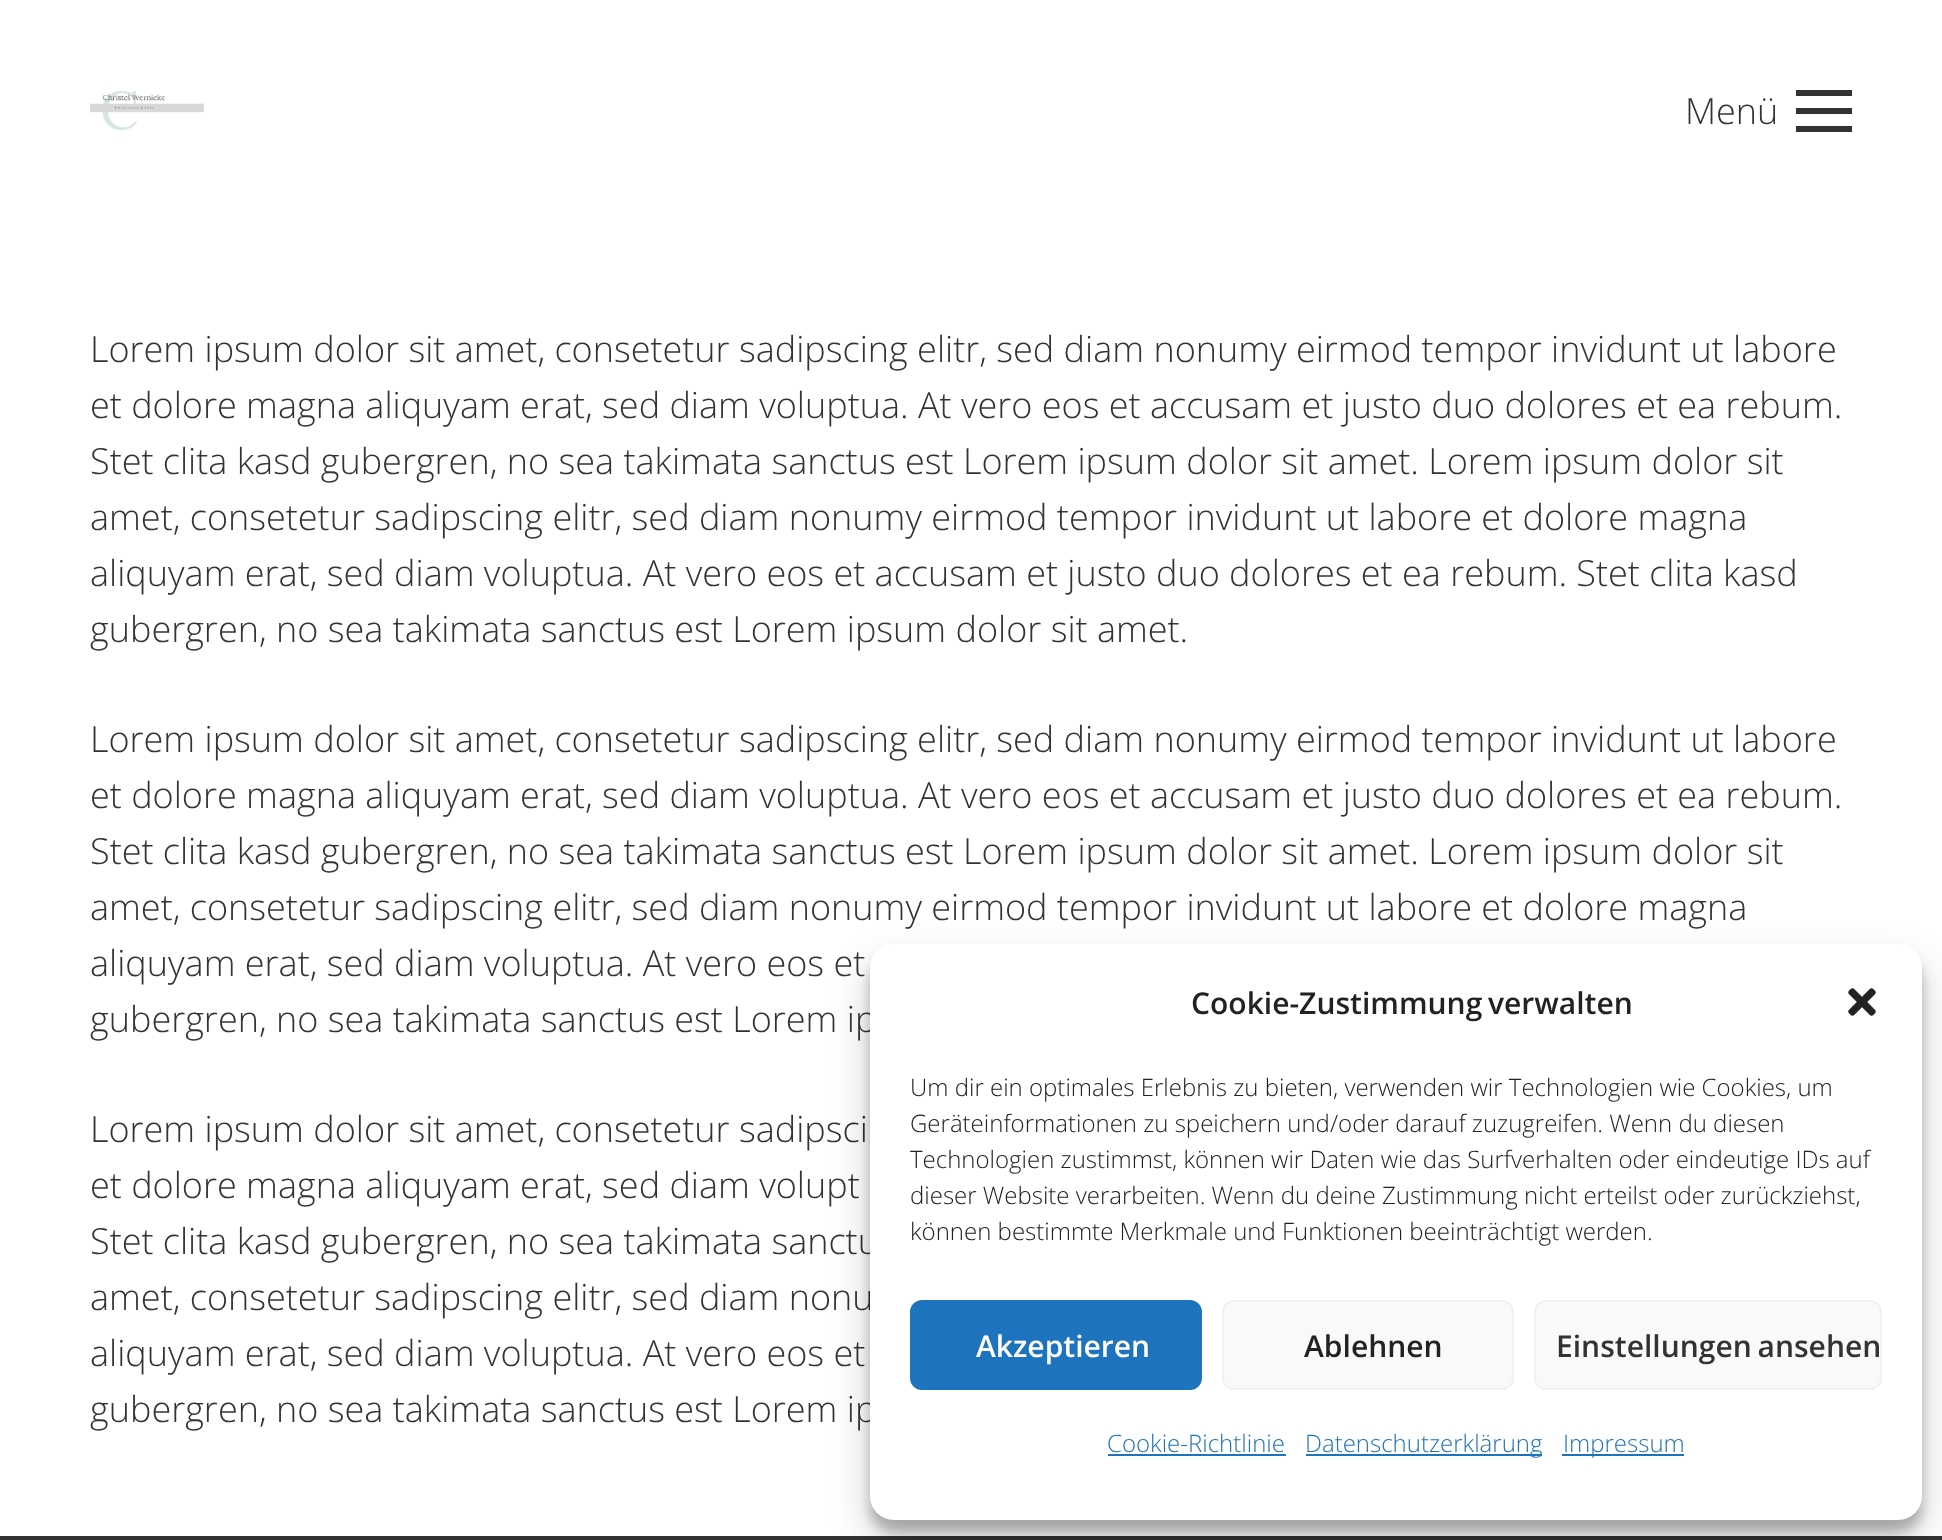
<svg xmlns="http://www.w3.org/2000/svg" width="1942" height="1540">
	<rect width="100%" height="100%" fill="#FFFFFF" />
	<image x="90" y="91" width="114" height="40" href="assets/img1.png" />
	<text x="1685" y="124" font-family="Open Sans" font-size="36" font-weight="300" fill="#333333">Menü</text>
	<rect x="1796" y="108" width="56" height="6" fill="#333333" />
	<rect x="1796" y="90" width="56" height="6" fill="#333333" />
	<rect x="1796" y="126" width="56" height="6" fill="#333333" />
	<g font-family="Open Sans" font-size="36" font-weight="300" fill="#333333">
		<text x="90" y="362">Lorem ipsum dolor sit amet, consetetur sadipscing elitr, sed diam nonumy eirmod tempor invidunt ut labore</text>
		<text x="90" y="418">et dolore magna aliquyam erat, sed diam voluptua. At vero eos et accusam et justo duo dolores et ea rebum.</text>
		<text x="90" y="474">Stet clita kasd gubergren, no sea takimata sanctus est Lorem ipsum dolor sit amet. Lorem ipsum dolor sit</text>
		<text x="90" y="530">amet, consetetur sadipscing elitr, sed diam nonumy eirmod tempor invidunt ut labore et dolore magna</text>
		<text x="90" y="586">aliquyam erat, sed diam voluptua. At vero eos et accusam et justo duo dolores et ea rebum. Stet clita kasd</text>
		<text x="90" y="642">gubergren, no sea takimata sanctus est Lorem ipsum dolor sit amet.</text>
		<text x="90" y="752">Lorem ipsum dolor sit amet, consetetur sadipscing elitr, sed diam nonumy eirmod tempor invidunt ut labore</text>
		<text x="90" y="808">et dolore magna aliquyam erat, sed diam voluptua. At vero eos et accusam et justo duo dolores et ea rebum.</text>
		<text x="90" y="864">Stet clita kasd gubergren, no sea takimata sanctus est Lorem ipsum dolor sit amet. Lorem ipsum dolor sit</text>
		<text x="90" y="920">amet, consetetur sadipscing elitr, sed diam nonumy eirmod tempor invidunt ut labore et dolore magna</text>
		<text x="90" y="976">aliquyam erat, sed diam voluptua. At vero eos et</text>
		<text x="90" y="1032">gubergren, no sea takimata sanctus est Lorem ip</text>
		<text x="90" y="1142">Lorem ipsum dolor sit amet, consetetur sadipsci</text>
		<text x="90" y="1198">et dolore magna aliquyam erat, sed diam volupt</text>
		<text x="90" y="1254">Stet clita kasd gubergren, no sea takimata sanctu</text>
		<text x="90" y="1310">amet, consetetur sadipscing elitr, sed diam nonu</text>
		<text x="90" y="1366">aliquyam erat, sed diam voluptua. At vero eos et</text>
		<text x="90" y="1422">gubergren, no sea takimata sanctus est Lorem ip</text>
	</g>
	<rect x="0" y="1536" width="1942" height="4" fill="#333333" />
	<rect x="870" y="956" width="1052" height="576" rx="24" fill="#000000" fill-opacity="0.23" filter="blur(6px)" />
	<rect x="870" y="964" width="1052" height="576" rx="24" fill="#000000" fill-opacity="0.19" filter="blur(20px)" />
	<rect x="870" y="944" width="1052" height="576" rx="24" fill="#FFFFFF" />
	<text x="1191" y="1014" word-spacing="-2" font-family="Open Sans" font-size="30" font-weight="600" fill="#222222">Cookie-Zustimmung verwalten</text>
	<image x="1848" y="988" width="28" height="28" href="assets/img2.png" />
	<g font-family="Open Sans" font-size="24" font-weight="300" fill="#222222">
		<text x="910" y="1096">Um dir ein optimales Erlebnis zu bieten, verwenden wir Technologien wie Cookies, um</text>
		<text x="910" y="1132">Geräteinformationen zu speichern und/oder darauf zuzugreifen. Wenn du diesen</text>
		<text x="910" y="1168">Technologien zustimmst, können wir Daten wie das Surfverhalten oder eindeutige IDs auf</text>
		<text x="910" y="1204">dieser Website verarbeiten. Wenn du deine Zustimmung nicht erteilst oder zurückziehst,</text>
		<text x="910" y="1240">können bestimmte Merkmale und Funktionen beeinträchtigt werden.</text>
	</g>
	<rect x="911" y="1301" width="290" height="88" rx="11" fill="#1E73BE" stroke="#1E73BE" stroke-width="2" />
	<text x="976" y="1357" font-family="Open Sans" font-size="30" font-weight="600" fill="#FFFFFF">Akzeptieren</text>
	<rect x="1223" y="1301" width="290" height="88" rx="11" fill="#F9F9F9" stroke="#F2F2F2" stroke-width="2" />
	<text x="1304" y="1357" font-family="Open Sans" font-size="30" font-weight="600" fill="#222222">Ablehnen</text>
	<rect x="1535" y="1301" width="346" height="88" rx="11" fill="#F9F9F9" stroke="#F2F2F2" stroke-width="2" />
	<text x="1556" y="1357" word-spacing="-2" font-family="Open Sans" font-size="30" font-weight="600" fill="#333333">Einstellungen ansehen</text>
	<text x="1107" y="1452" font-family="Open Sans" font-size="24" font-weight="300" fill="#1E73BE">Cookie-Richtlinie</text>
	<rect x="1108" y="1454" width="178" height="2" fill="#1E73BE" />
	<rect x="1306" y="1454" width="236" height="2" fill="#1E73BE" />
	<text x="1305" y="1452" font-family="Open Sans" font-size="24" font-weight="300" fill="#1E73BE">Datenschutzerklärung</text>
	<rect x="1562" y="1454" width="122" height="2" fill="#1E73BE" />
	<text x="1563" y="1452" font-family="Open Sans" font-size="24" font-weight="300" fill="#1E73BE">Impressum</text>
</svg>
